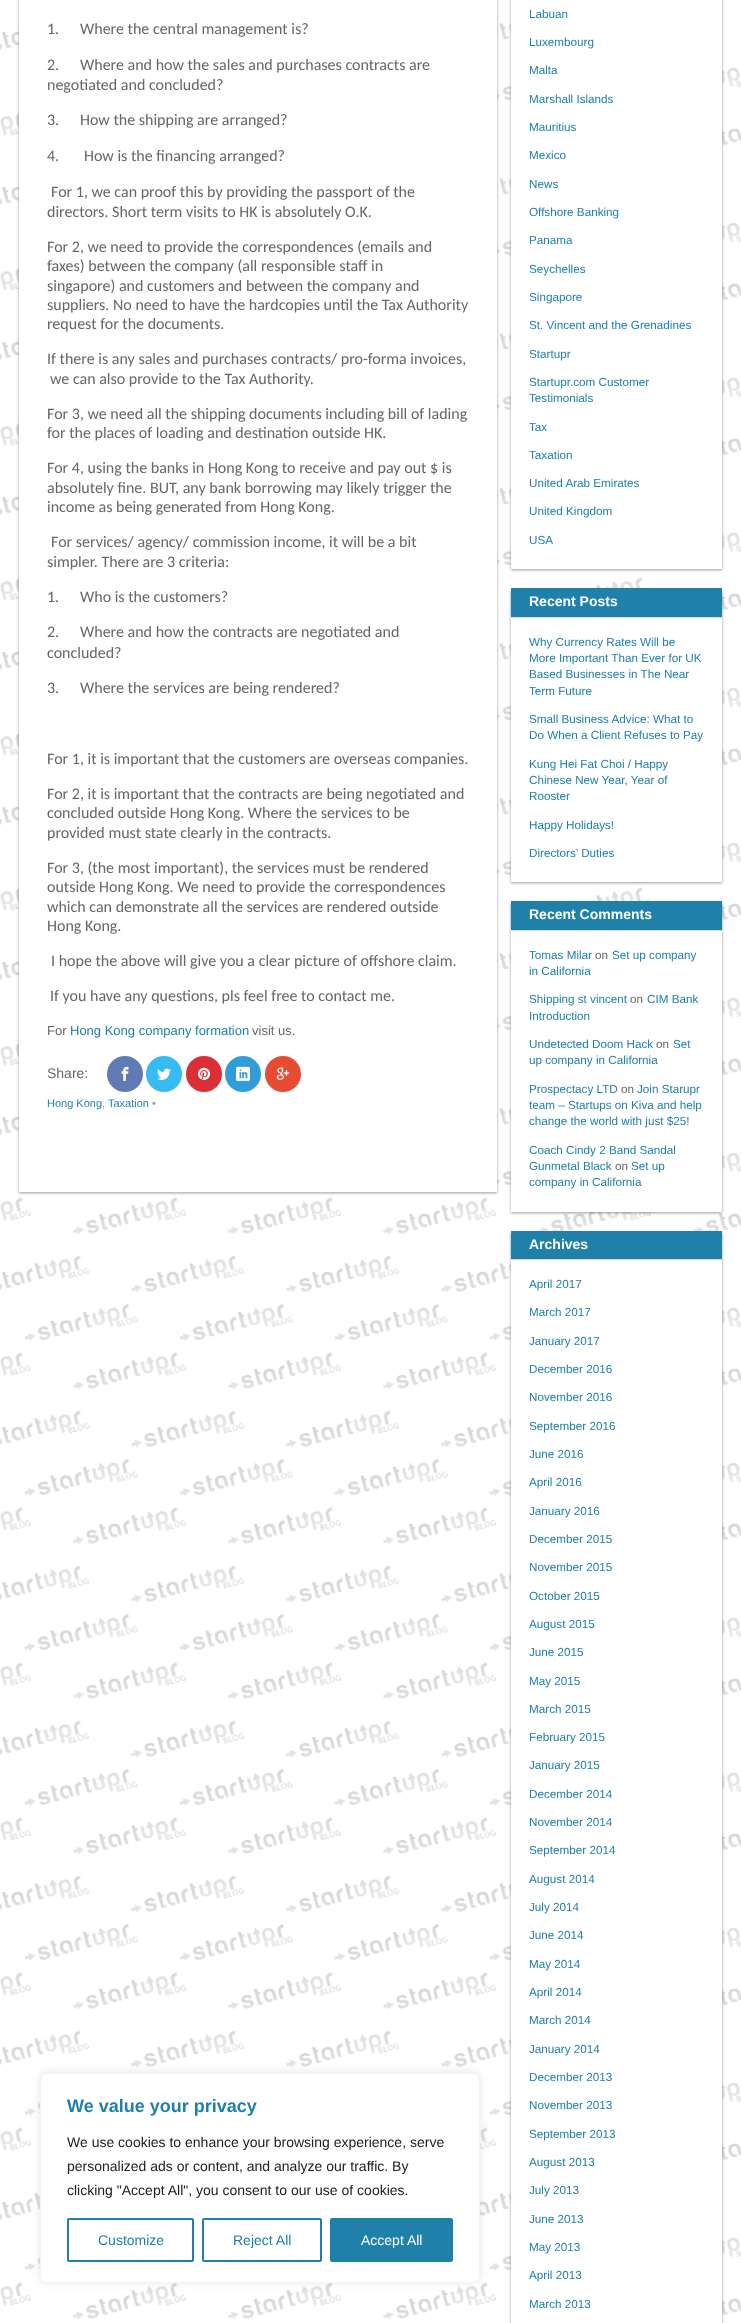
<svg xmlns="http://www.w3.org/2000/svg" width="741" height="2323">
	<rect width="100%" height="100%" fill="#FFFFFF" />
	<image x="0" y="22" width="741" height="2298" href="assets/img1.png" />
	<rect x="19" y="-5" width="478" height="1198" fill="#000000" fill-opacity="0.4" filter="blur(1.5px)" />
	<rect x="19" y="0" width="478" height="1192" fill="#FFFFFF" />
	<g font-family="Carlito" font-size="16" fill="#666666">
		<text x="47" y="34">1.</text>
		<text x="80" y="34">Where the central management is?</text>
		<text x="47" y="70">2.</text>
		<text x="80" y="70">Where and how the sales and purchases contracts are</text>
		<text x="47" y="90">negotiated and concluded?</text>
		<text x="47" y="125">3.</text>
		<text x="80" y="125">How the shipping are arranged?</text>
		<text x="47" y="161">4.</text>
		<text x="84" y="161">How is the financing arranged?</text>
		<text x="51" y="197">For 1, we can proof this by providing the passport of the</text>
		<text x="47" y="217">directors. Short term visits to HK is absolutely O.K.</text>
		<text x="47" y="252">For 2, we need to provide the correspondences (emails and</text>
		<text x="47" y="271">faxes) between the company (all responsible staff in</text>
		<text x="47" y="291">singapore) and customers and between the company and</text>
		<text x="47" y="310">suppliers. No need to have the hardcopies until the Tax Authority</text>
		<text x="47" y="329">request for the documents.</text>
		<text x="47" y="364">If there is any sales and purchases contracts/ pro-forma invoices,</text>
		<text x="50" y="384">we can also provide to the Tax Authority.</text>
		<text x="47" y="419">For 3, we need all the shipping documents including bill of lading</text>
		<text x="47" y="438">for the places of loading and destination outside HK.</text>
		<text x="47" y="473">For 4, using the banks in Hong Kong to receive and pay out $ is</text>
		<text x="47" y="493">absolutely fine. BUT, any bank borrowing may likely trigger the</text>
		<text x="47" y="512">income as being generated from Hong Kong.</text>
		<text x="51" y="547">For services/ agency/ commission income, it will be a bit</text>
		<text x="47" y="567">simpler. There are 3 criteria:</text>
		<text x="47" y="602">1.</text>
		<text x="80" y="602">Who is the customers?</text>
		<text x="47" y="637">2.</text>
		<text x="80" y="637">Where and how the contracts are negotiated and</text>
		<text x="47" y="658">concluded?</text>
		<text x="47" y="693">3.</text>
		<text x="80" y="693">Where the services are being rendered?</text>
		<text x="47" y="764">For 1, it is important that the customers are overseas companies.</text>
		<text x="47" y="799">For 2, it is important that the contracts are being negotiated and</text>
		<text x="47" y="818">concluded outside Hong Kong. Where the services to be</text>
		<text x="47" y="838">provided must state clearly in the contracts.</text>
		<text x="47" y="873">For 3, (the most important), the services must be rendered</text>
		<text x="47" y="892">outside Hong Kong. We need to provide the correspondences</text>
		<text x="47" y="912">which can demonstrate all the services are rendered outside</text>
		<text x="47" y="931">Hong Kong.</text>
		<text x="51" y="966">I hope the above will give you a clear picture of offshore claim.</text>
		<text x="50" y="1001">If you have any questions, pls feel free to contact me.</text>
	</g>
	<text x="47" y="1035" font-family="Liberation Sans" font-size="13" fill="#666666">For</text>
	<text x="70" y="1035" font-family="Liberation Sans" font-size="13" fill="#1F80AA">Hong Kong company formation</text>
	<text x="252" y="1035" font-family="Liberation Sans" font-size="13" fill="#666666">visit us.</text>
	<text x="47" y="1078" font-family="Liberation Sans" font-size="14" fill="#666666">Share:</text>
	<circle cx="125" cy="1074" r="18" fill="#607BB3" />
	<image x="121" y="1066" width="8" height="15" href="assets/img2.png" />
	<circle cx="164" cy="1074" r="18" fill="#37BBF5" />
	<image x="157" y="1068" width="14" height="12" href="assets/img3.png" />
	<circle cx="204" cy="1074" r="18" fill="#DB2E36" />
	<image x="197" y="1067" width="14" height="13" href="assets/img4.png" />
	<circle cx="243" cy="1074" r="18" fill="#319CDA" />
	<image x="236" y="1066" width="14" height="15" href="assets/img5.png" />
	<circle cx="283" cy="1074" r="18" fill="#E74B32" />
	<image x="276" y="1067" width="14" height="13" href="assets/img6.png" />
	<g font-family="Liberation Sans" font-size="11" fill="#1F80AA">
		<text x="47" y="1107">Hong Kong</text>
		<text x="108" y="1107">Taxation</text>
	</g>
	<g font-family="Liberation Sans" font-size="11" fill="#999999">
		<text x="152" y="1107">•</text>
		<text x="102" y="1107">,</text>
	</g>
	<rect x="511" y="-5" width="211" height="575" fill="#000000" fill-opacity="0.4" filter="blur(1.5px)" />
	<rect x="511" y="0" width="211" height="569" fill="#FFFFFF" />
	<g font-family="Liberation Sans" font-size="11.7" fill="#1F80AA">
		<text x="529" y="18">Labuan</text>
		<text x="529" y="46">Luxembourg</text>
		<text x="529" y="74">Malta</text>
		<text x="529" y="103">Marshall Islands</text>
		<text x="529" y="131">Mauritius</text>
		<text x="529" y="159">Mexico</text>
		<text x="529" y="188">News</text>
		<text x="529" y="216">Offshore Banking</text>
		<text x="529" y="244">Panama</text>
		<text x="529" y="273">Seychelles</text>
		<text x="529" y="301">Singapore</text>
		<text x="529" y="329">St. Vincent and the Grenadines</text>
		<text x="529" y="358">Startupr</text>
		<text x="529" y="386">Startupr.com Customer</text>
		<text x="529" y="402">Testimonials</text>
		<text x="529" y="431">Tax</text>
		<text x="529" y="459">Taxation</text>
		<text x="529" y="487">United Arab Emirates</text>
		<text x="529" y="515">United Kingdom</text>
		<text x="529" y="544">USA</text>
	</g>
	<rect x="511" y="590" width="211" height="293" fill="#000000" fill-opacity="0.4" filter="blur(1.5px)" />
	<rect x="511" y="617" width="211" height="265" fill="#FFFFFF" />
	<rect x="511" y="589" width="211" height="29" fill="#000000" fill-opacity="0.15" filter="blur(0.5px)" />
	<rect x="511" y="588" width="211" height="29" fill="#1F80AA" />
	<text x="529" y="606" font-family="Liberation Sans" font-size="14" font-weight="700" fill="#FFFFFF">Recent Posts</text>
	<g font-family="Liberation Sans" font-size="11.7" fill="#1F80AA">
		<text x="529" y="646">Why Currency Rates Will be</text>
		<text x="529" y="662">More Important Than Ever for UK</text>
		<text x="529" y="678">Based Businesses in The Near</text>
		<text x="529" y="695">Term Future</text>
		<text x="529" y="723">Small Business Advice: What to</text>
		<text x="529" y="739">Do When a Client Refuses to Pay</text>
		<text x="529" y="768">Kung Hei Fat Choi / Happy</text>
		<text x="529" y="784">Chinese New Year, Year of</text>
		<text x="529" y="800">Rooster</text>
		<text x="529" y="829">Happy Holidays!</text>
		<text x="529" y="857">Directors’ Duties</text>
	</g>
	<rect x="511" y="903" width="211" height="310" fill="#000000" fill-opacity="0.4" filter="blur(1.5px)" />
	<rect x="511" y="930" width="211" height="282" fill="#FFFFFF" />
	<rect x="511" y="902" width="211" height="29" fill="#000000" fill-opacity="0.15" filter="blur(0.5px)" />
	<rect x="511" y="901" width="211" height="29" fill="#1F80AA" />
	<text x="529" y="919" font-family="Liberation Sans" font-size="14" font-weight="700" fill="#FFFFFF">Recent Comments</text>
	<text x="529" y="959" font-family="Liberation Sans" font-size="11.7" fill="#1F80AA">Tomas Milar</text>
	<text x="595" y="959" font-family="Liberation Sans" font-size="11.7" fill="#666666">on</text>
	<g font-family="Liberation Sans" font-size="11.7" fill="#1F80AA">
		<text x="612" y="959">Set up company</text>
		<text x="529" y="975">in California</text>
		<text x="529" y="1003">Shipping st vincent</text>
	</g>
	<text x="630" y="1003" font-family="Liberation Sans" font-size="11.7" fill="#666666">on</text>
	<g font-family="Liberation Sans" font-size="11.7" fill="#1F80AA">
		<text x="647" y="1003">CIM Bank</text>
		<text x="529" y="1020">Introduction</text>
		<text x="529" y="1048">Undetected Doom Hack</text>
	</g>
	<text x="656" y="1048" font-family="Liberation Sans" font-size="11.7" fill="#666666">on</text>
	<g font-family="Liberation Sans" font-size="11.7" fill="#1F80AA">
		<text x="673" y="1048">Set</text>
		<text x="529" y="1064">up company in California</text>
		<text x="529" y="1093">Prospectacy LTD</text>
	</g>
	<text x="621" y="1093" font-family="Liberation Sans" font-size="11.7" fill="#666666">on</text>
	<g font-family="Liberation Sans" font-size="11.7" fill="#1F80AA">
		<text x="637" y="1093">Join Starupr</text>
		<text x="529" y="1109">team – Startups on Kiva and help</text>
		<text x="529" y="1125">change the world with just $25!</text>
		<text x="529" y="1154">Coach Cindy 2 Band Sandal</text>
		<text x="529" y="1170">Gunmetal Black</text>
	</g>
	<text x="615" y="1170" font-family="Liberation Sans" font-size="11.7" fill="#666666">on</text>
	<g font-family="Liberation Sans" font-size="11.7" fill="#1F80AA">
		<text x="631" y="1170">Set up</text>
		<text x="529" y="1186">company in California</text>
	</g>
	<rect x="511" y="1233" width="211" height="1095" fill="#000000" fill-opacity="0.4" filter="blur(1.5px)" />
	<rect x="511" y="1259" width="211" height="1064" fill="#FFFFFF" />
	<rect x="511" y="1232" width="211" height="28" fill="#000000" fill-opacity="0.15" filter="blur(0.5px)" />
	<rect x="511" y="1231" width="211" height="28" fill="#1F80AA" />
	<text x="529" y="1249" font-family="Liberation Sans" font-size="14" font-weight="700" fill="#FFFFFF">Archives</text>
	<g font-family="Liberation Sans" font-size="11.7" fill="#1F80AA">
		<text x="529" y="1288">April 2017</text>
		<text x="529" y="1316">March 2017</text>
		<text x="529" y="1345">January 2017</text>
		<text x="529" y="1373">December 2016</text>
		<text x="529" y="1401">November 2016</text>
		<text x="529" y="1430">September 2016</text>
		<text x="529" y="1458">June 2016</text>
		<text x="529" y="1486">April 2016</text>
		<text x="529" y="1515">January 2016</text>
		<text x="529" y="1543">December 2015</text>
		<text x="529" y="1571">November 2015</text>
		<text x="529" y="1600">October 2015</text>
		<text x="529" y="1628">August 2015</text>
		<text x="529" y="1656">June 2015</text>
		<text x="529" y="1685">May 2015</text>
		<text x="529" y="1713">March 2015</text>
		<text x="529" y="1741">February 2015</text>
		<text x="529" y="1769">January 2015</text>
		<text x="529" y="1798">December 2014</text>
		<text x="529" y="1826">November 2014</text>
		<text x="529" y="1854">September 2014</text>
		<text x="529" y="1883">August 2014</text>
		<text x="529" y="1911">July 2014</text>
		<text x="529" y="1939">June 2014</text>
		<text x="529" y="1968">May 2014</text>
		<text x="529" y="1996">April 2014</text>
		<text x="529" y="2024">March 2014</text>
		<text x="529" y="2053">January 2014</text>
		<text x="529" y="2081">December 2013</text>
		<text x="529" y="2109">November 2013</text>
		<text x="529" y="2138">September 2013</text>
		<text x="529" y="2166">August 2013</text>
		<text x="529" y="2194">July 2013</text>
		<text x="529" y="2223">June 2013</text>
		<text x="529" y="2251">May 2013</text>
		<text x="529" y="2279">April 2013</text>
		<text x="529" y="2308">March 2013</text>
	</g>
	<rect x="40" y="2072" width="440" height="210" rx="6" fill="#ACABAB" fill-opacity="0.3" filter="blur(5px)" />
	<rect x="40.5" y="2073.5" width="439" height="209" rx="5.5" fill="#FFFFFF" stroke="#F4F4F4" />
	<text x="67" y="2112" font-family="Liberation Sans" font-size="18" font-weight="700" fill="#1F80AA">We value your privacy</text>
	<g font-family="Liberation Sans" font-size="14" fill="#212121">
		<text x="67" y="2147">We use cookies to enhance your browsing experience, serve</text>
		<text x="67" y="2171">personalized ads or content, and analyze our traffic. By</text>
		<text x="67" y="2195">clicking "Accept All", you consent to our use of cookies.</text>
	</g>
	<rect x="68" y="2219" width="125" height="42" rx="1" fill="none" stroke="#1F80AA" stroke-width="2" />
	<text x="98" y="2245" font-family="Liberation Sans" font-size="14" fill="#1F80AA">Customize</text>
	<rect x="203" y="2219" width="118" height="42" rx="1" fill="none" stroke="#1F80AA" stroke-width="2" />
	<text x="233" y="2245" font-family="Liberation Sans" font-size="14" fill="#1F80AA">Reject All</text>
	<rect x="331" y="2219" width="121" height="42" rx="1" fill="#1F80AA" stroke="#1F80AA" stroke-width="2" />
	<text x="361" y="2245" font-family="Liberation Sans" font-size="14" fill="#FFFFFF">Accept All</text>
</svg>
